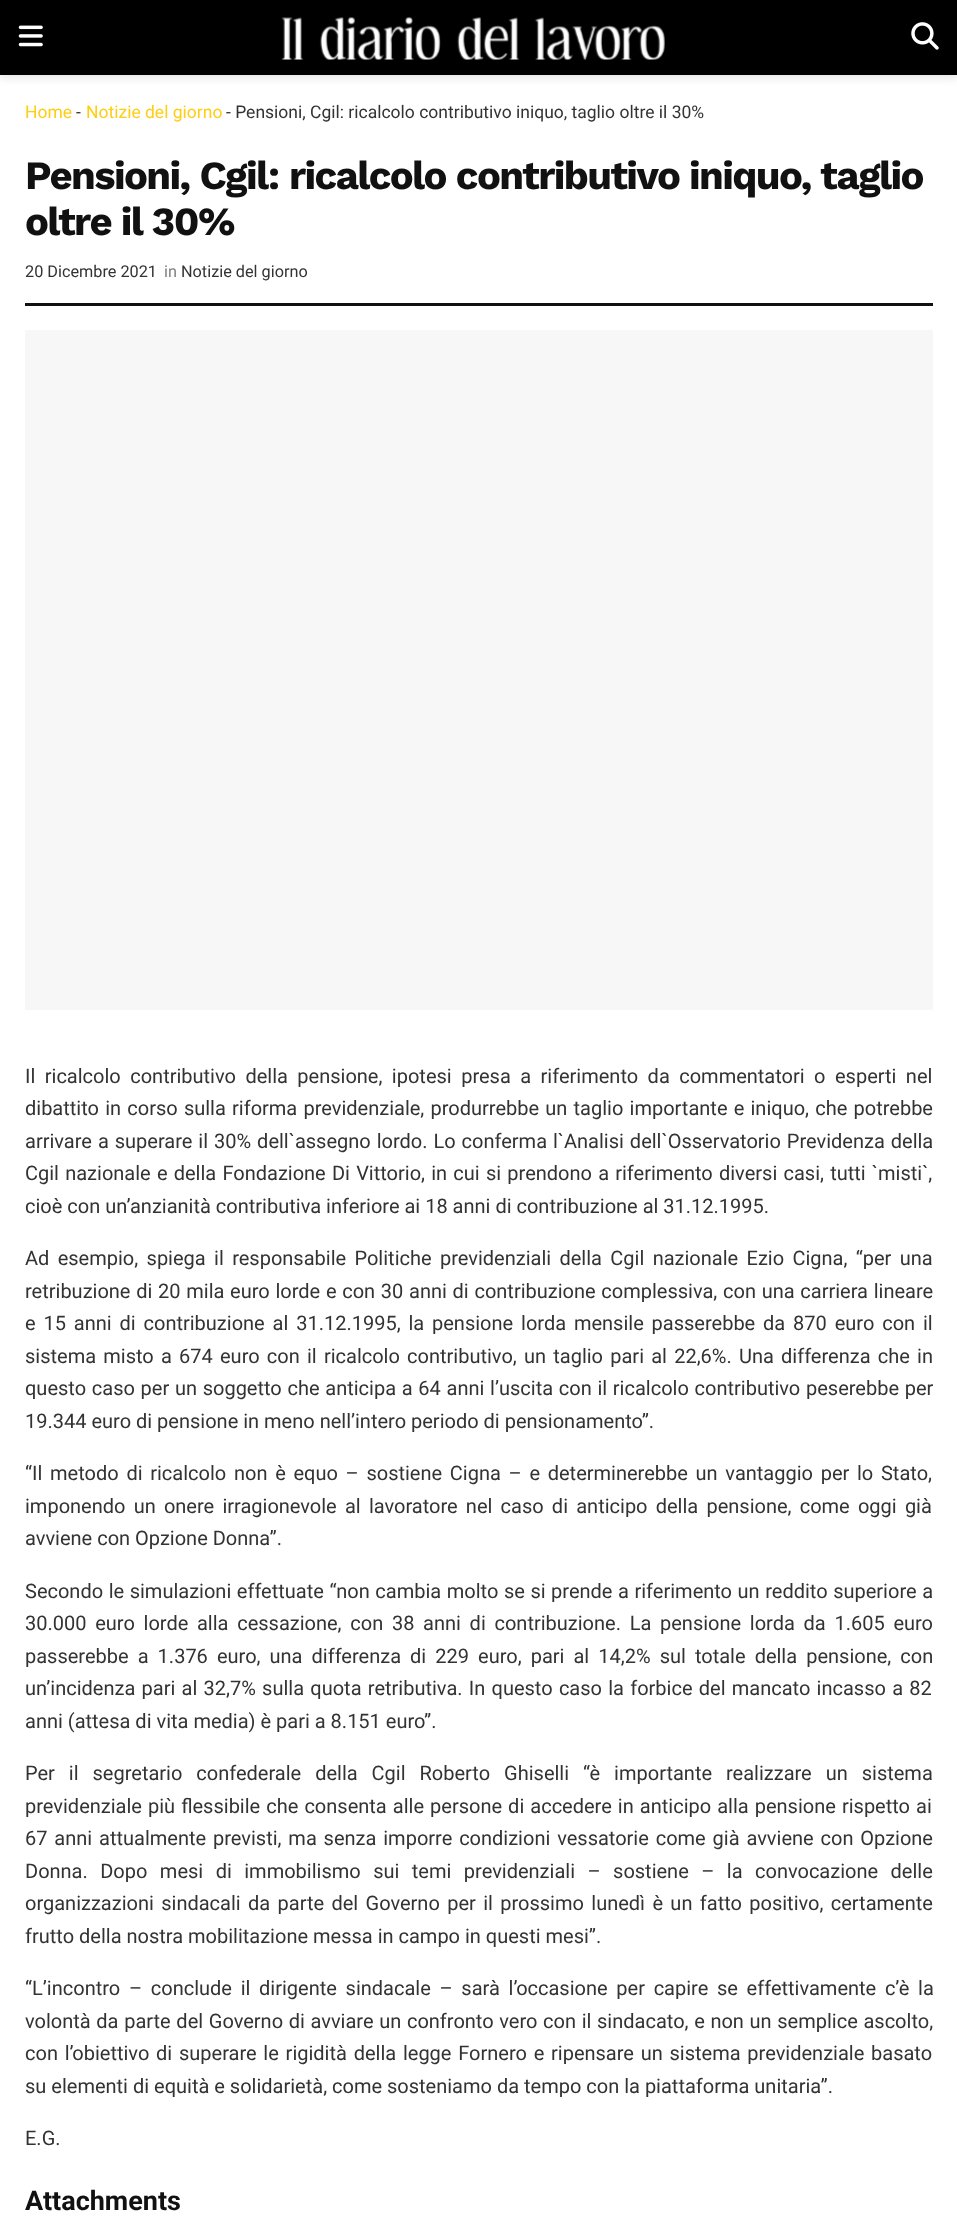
<svg xmlns="http://www.w3.org/2000/svg" width="957" height="2233">
	<rect width="100%" height="100%" fill="#FFFFFF" />
	<rect x="0" y="3" width="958" height="75" fill="#000000" fill-opacity="0.1" filter="blur(4px)" />
	<rect x="0" y="0" width="957" height="75" fill="#000000" />
	<image x="18" y="25" width="25" height="22" href="assets/img1.png" />
	<image x="281" y="17" width="384" height="43" href="assets/img2.png" />
	<image x="911" y="22" width="28" height="28" href="assets/img3.png" />
	<text x="25" y="118" font-family="Roboto" font-size="17.5" fill="#FFCD13">Home</text>
	<text x="76" y="118" font-family="Roboto" font-size="17.5" fill="#333333">-</text>
	<text x="86" y="118" font-family="Roboto" font-size="17.5" fill="#FFCD13">Notizie del giorno</text>
	<text x="226" y="118" font-family="Roboto" font-size="17.5" fill="#333333">- Pensioni, Cgil: ricalcolo contributivo iniquo, taglio oltre il 30%</text>
	<rect x="25" y="303" width="908" height="3" fill="#111111" />
	<g font-family="Work Sans" font-size="40" font-weight="700" letter-spacing="-1.6" fill="#111111">
		<text x="25" y="189">Pensioni, Cgil: ricalcolo contributivo iniquo, taglio</text>
		<text x="25" y="235">oltre il 30%</text>
	</g>
	<text x="25" y="277" font-family="Roboto" font-size="16.25" fill="#333333">20 Dicembre 2021</text>
	<text x="164" y="277" font-family="Roboto" font-size="16.25" fill="#808080">in</text>
	<text x="181" y="277" font-family="Roboto" font-size="16.25" fill="#333333">Notizie del giorno</text>
	<rect x="25" y="330" width="908" height="680" fill="#F7F7F7" />
	<g font-family="Roboto" font-size="20" fill="#333333">
		<text x="25" y="1083" word-spacing="4.5">Il ricalcolo contributivo della pensione, ipotesi presa a riferimento da commentatori o esperti nel</text>
		<text x="25" y="1115" word-spacing="1.25">dibattito in corso sulla riforma previdenziale, produrrebbe un taglio importante e iniquo, che potrebbe</text>
		<text x="25" y="1148" word-spacing="1">arrivare a superare il 30% dell`assegno lordo. Lo conferma l`Analisi dell`Osservatorio Previdenza della</text>
		<text x="25" y="1180" word-spacing="1.25">Cgil nazionale e della Fondazione Di Vittorio, in cui si prendono a riferimento diversi casi, tutti `misti`,</text>
		<text x="25" y="1213">cioè con un’anzianità contributiva inferiore ai 18 anni di contribuzione al 31.12.1995.</text>
		<text x="25" y="1265" word-spacing="3.4">Ad esempio, spiega il responsabile Politiche previdenziali della Cgil nazionale Ezio Cigna, “per una</text>
		<text x="25" y="1298" word-spacing="0.75">retribuzione di 20 mila euro lorde e con 30 anni di contribuzione complessiva, con una carriera lineare</text>
		<text x="25" y="1330" word-spacing="2.9">e 15 anni di contribuzione al 31.12.1995, la pensione lorda mensile passerebbe da 870 euro con il</text>
		<text x="25" y="1363" word-spacing="2.25">sistema misto a 674 euro con il ricalcolo contributivo, un taglio pari al 22,6%. Una differenza che in</text>
		<text x="25" y="1395" word-spacing="0.75">questo caso per un soggetto che anticipa a 64 anni l’uscita con il ricalcolo contributivo peserebbe per</text>
		<text x="25" y="1428">19.344 euro di pensione in meno nell’intero periodo di pensionamento”.</text>
		<text x="25" y="1480" word-spacing="2.75">“Il metodo di ricalcolo non è equo – sostiene Cigna – e determinerebbe un vantaggio per lo Stato,</text>
		<text x="25" y="1513" word-spacing="3.25">imponendo un onere irragionevole al lavoratore nel caso di anticipo della pensione, come oggi già</text>
		<text x="25" y="1545">avviene con Opzione Donna”.</text>
		<text x="25" y="1598" word-spacing="0.6">Secondo le simulazioni effettuate “non cambia molto se si prende a riferimento un reddito superiore a</text>
		<text x="25" y="1630" word-spacing="3.75">30.000 euro lorde alla cessazione, con 38 anni di contribuzione. La pensione lorda da 1.605 euro</text>
		<text x="25" y="1663" word-spacing="4.1">passerebbe a 1.376 euro, una differenza di 229 euro, pari al 14,2% sul totale della pensione, con</text>
		<text x="25" y="1695" word-spacing="1.3">un’incidenza pari al 32,7% sulla quota retributiva. In questo caso la forbice del mancato incasso a 82</text>
		<text x="25" y="1728">anni (attesa di vita media) è pari a 8.151 euro”.</text>
		<text x="25" y="1780" word-spacing="9">Per il segretario confederale della Cgil Roberto Ghiselli “è importante realizzare un sistema</text>
		<text x="25" y="1813" word-spacing="1.1">previdenziale più flessibile che consenta alle persone di accedere in anticipo alla pensione rispetto ai</text>
		<text x="25" y="1845" word-spacing="1.9">67 anni attualmente previsti, ma senza imporre condizioni vessatorie come già avviene con Opzione</text>
		<text x="25" y="1878" word-spacing="7.5">Donna. Dopo mesi di immobilismo sui temi previdenziali – sostiene – la convocazione delle</text>
		<text x="25" y="1910" word-spacing="2.4">organizzazioni sindacali da parte del Governo per il prossimo lunedì è un fatto positivo, certamente</text>
		<text x="25" y="1943">frutto della nostra mobilitazione messa in campo in questi mesi”.</text>
		<text x="25" y="1995" word-spacing="3.75">“L’incontro – conclude il dirigente sindacale – sarà l’occasione per capire se effettivamente c’è la</text>
		<text x="25" y="2028" word-spacing="0.7">volontà da parte del Governo di avviare un confronto vero con il sindacato, e non un semplice ascolto,</text>
		<text x="25" y="2060" word-spacing="1.8">con l’obiettivo di superare le rigidità della legge Fornero e ripensare un sistema previdenziale basato</text>
		<text x="25" y="2093">su elementi di equità e solidarietà, come sosteniamo da tempo con la piattaforma unitaria”.</text>
		<text x="25" y="2145">E.G.</text>
	</g>
	<text x="25" y="2210" font-family="Roboto" font-size="27" font-weight="700" fill="#111111">Attachments</text>
</svg>
